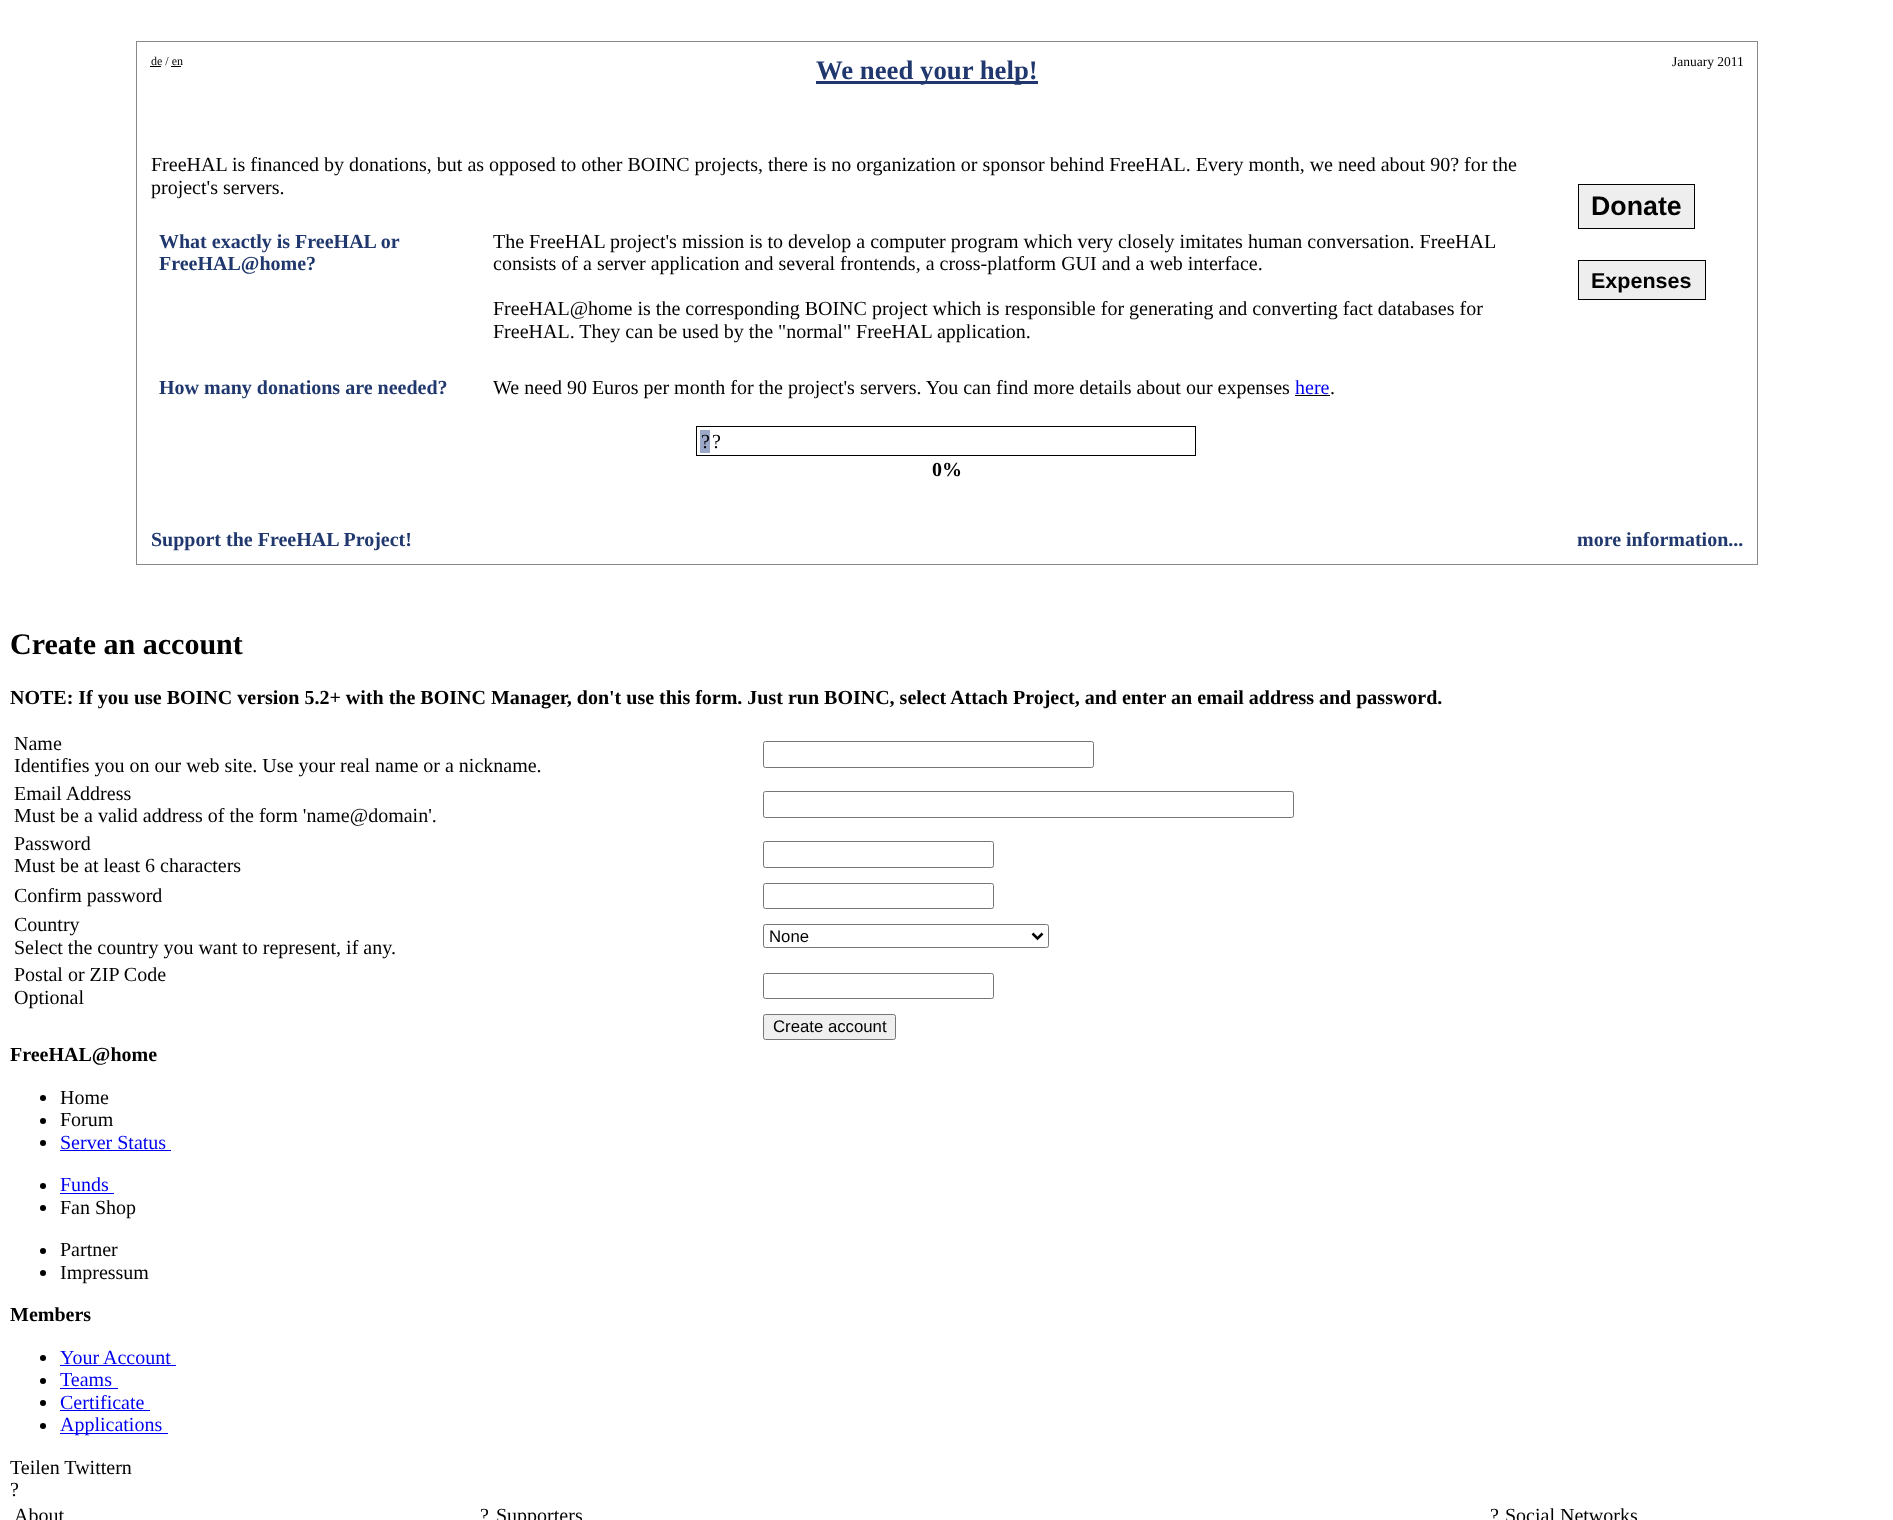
<svg xmlns="http://www.w3.org/2000/svg" width="1893" height="1520">
	<rect width="100%" height="100%" fill="#FFFFFF" />
	<rect x="136.5" y="41.5" width="1621" height="523" fill="none" stroke="#898989" />
	<text x="151" y="65" font-family="Liberation Serif" font-size="12" fill="#000000">de / en</text>
	<rect x="150" y="66" width="11" height="1" fill="#000000" />
	<rect x="171" y="66" width="10" height="1" fill="#000000" />
	<rect x="816" y="81" width="222" height="3" fill="#20386E" />
	<text x="816" y="79" font-family="Liberation Serif" font-size="26.75" font-weight="700" fill="#20386E">We need your help!</text>
	<text x="1672" y="66" font-family="Liberation Serif" font-size="13.5" fill="#000000">January 2011</text>
	<g font-family="Liberation Serif" font-size="20" fill="#000000">
		<text x="151" y="171">FreeHAL is financed by donations, but as opposed to other BOINC projects, there is no organization or sponsor behind FreeHAL. Every month, we need about 90? for the</text>
		<text x="151" y="194">project's servers.</text>
	</g>
	<g font-family="Liberation Serif" font-size="20" font-weight="700" fill="#20386E">
		<text x="159" y="248">What exactly is FreeHAL or</text>
		<text x="159" y="270">FreeHAL@home?</text>
	</g>
	<g font-family="Liberation Serif" font-size="20" fill="#000000">
		<text x="493" y="248">The FreeHAL project's mission is to develop a computer program which very closely imitates human conversation. FreeHAL</text>
		<text x="493" y="270">consists of a server application and several frontends, a cross-platform GUI and a web interface.</text>
		<text x="493" y="315">FreeHAL@home is the corresponding BOINC project which is responsible for generating and converting fact databases for</text>
		<text x="493" y="338">FreeHAL. They can be used by the "normal" FreeHAL application.</text>
	</g>
	<text x="159" y="394" font-family="Liberation Serif" font-size="20" font-weight="700" fill="#20386E">How many donations are needed?</text>
	<text x="493" y="394" font-family="Liberation Serif" font-size="20" fill="#000000">We need 90 Euros per month for the project's servers. You can find more details about our expenses</text>
	<text x="1295" y="394" font-family="Liberation Serif" font-size="20" fill="#0000EE">here</text>
	<rect x="1295" y="395" width="35" height="1" fill="#000000" />
	<text x="1330" y="394" font-family="Liberation Serif" font-size="20" fill="#000000">.</text>
	<rect x="1578.5" y="184.5" width="116" height="44" fill="#EEEEEE" stroke="#000000" />
	<text x="1591" y="215" font-family="Liberation Sans" font-size="26.75" font-weight="700" fill="#000000">Donate</text>
	<rect x="1578.5" y="260.5" width="127" height="39" fill="#EEEEEE" stroke="#000000" />
	<text x="1591" y="288" font-family="Liberation Sans" font-size="21.5" font-weight="700" fill="#000000">Expenses</text>
	<rect x="696.5" y="426.5" width="499" height="29" fill="none" stroke="#000000" />
	<rect x="700" y="430" width="10" height="23" fill="#9BA8C8" />
	<g font-family="Liberation Serif" font-size="20" fill="#000000">
		<text x="701" y="448">?</text>
		<text x="712" y="448">?</text>
	</g>
	<text x="932" y="476" font-family="Liberation Serif" font-size="20" font-weight="700" fill="#000000">0%</text>
	<g font-family="Liberation Serif" font-size="20" font-weight="700" fill="#20386E">
		<text x="151" y="546">Support the FreeHAL Project!</text>
		<text x="1577" y="546">more information...</text>
	</g>
	<text x="10" y="654" font-family="Liberation Serif" font-size="30" font-weight="700" fill="#000000">Create an account</text>
	<text x="10" y="704" font-family="Liberation Serif" font-size="20" font-weight="700" fill="#000000">NOTE: If you use BOINC version 5.2+ with the BOINC Manager, don't use this form. Just run BOINC, select Attach Project, and enter an email address and password.</text>
	<g font-family="Liberation Serif" font-size="20" fill="#000000">
		<text x="14" y="750">Name</text>
		<text x="14" y="772">Identifies you on our web site. Use your real name or a nickname.</text>
	</g>
	<rect x="763.5" y="741.5" width="330" height="26" rx="2" fill="none" stroke="#767676" />
	<g font-family="Liberation Serif" font-size="20" fill="#000000">
		<text x="14" y="800">Email Address</text>
		<text x="14" y="822">Must be a valid address of the form 'name@domain'.</text>
	</g>
	<rect x="763.5" y="791.5" width="530" height="26" rx="2" fill="none" stroke="#767676" />
	<g font-family="Liberation Serif" font-size="20" fill="#000000">
		<text x="14" y="850">Password</text>
		<text x="14" y="872">Must be at least 6 characters</text>
	</g>
	<rect x="763.5" y="841.5" width="230" height="26" rx="2" fill="none" stroke="#767676" />
	<text x="14" y="902" font-family="Liberation Serif" font-size="20" fill="#000000">Confirm password</text>
	<rect x="763.5" y="883.5" width="230" height="25" rx="2" fill="none" stroke="#767676" />
	<g font-family="Liberation Serif" font-size="20" fill="#000000">
		<text x="14" y="931">Country</text>
		<text x="14" y="954">Select the country you want to represent, if any.</text>
	</g>
	<rect x="763.5" y="924.5" width="285" height="23" rx="2" fill="none" stroke="#767676" />
	<path d="M1032.5 933.5L1037.5 938.5L1042.5 933.5" fill="none" stroke="#000000" stroke-width="2.5" />
	<text x="769" y="942" font-family="Liberation Sans" font-size="16.75" fill="#000000">None</text>
	<g font-family="Liberation Serif" font-size="20" fill="#000000">
		<text x="14" y="981">Postal or ZIP Code</text>
		<text x="14" y="1004">Optional</text>
	</g>
	<rect x="763.5" y="973.5" width="230" height="25" rx="2" fill="none" stroke="#767676" />
	<rect x="763.5" y="1014.5" width="132" height="25" rx="2" fill="#EFEFEF" stroke="#767676" />
	<text x="773" y="1032" font-family="Liberation Sans" font-size="16.75" fill="#000000">Create account</text>
	<text x="10" y="1061" font-family="Liberation Serif" font-size="20" font-weight="700" fill="#000000">FreeHAL@home</text>
	<circle cx="43" cy="1098" r="3" fill="#000000" />
	<text x="60" y="1104" font-family="Liberation Serif" font-size="20" fill="#000000">Home</text>
	<circle cx="43" cy="1121" r="3" fill="#000000" />
	<text x="60" y="1126" font-family="Liberation Serif" font-size="20" fill="#000000">Forum</text>
	<circle cx="43" cy="1143" r="3" fill="#000000" />
	<text x="60" y="1149" font-family="Liberation Serif" font-size="20" fill="#0000EE">Server Status</text>
	<rect x="60" y="1150" width="111" height="1" fill="#0000EE" />
	<circle cx="43" cy="1186" r="3" fill="#000000" />
	<text x="60" y="1191" font-family="Liberation Serif" font-size="20" fill="#0000EE">Funds</text>
	<rect x="60" y="1193" width="54" height="1" fill="#0000EE" />
	<circle cx="43" cy="1208" r="3" fill="#000000" />
	<text x="60" y="1214" font-family="Liberation Serif" font-size="20" fill="#000000">Fan Shop</text>
	<circle cx="43" cy="1251" r="3" fill="#000000" />
	<text x="60" y="1256" font-family="Liberation Serif" font-size="20" fill="#000000">Partner</text>
	<circle cx="43" cy="1273" r="3" fill="#000000" />
	<text x="60" y="1279" font-family="Liberation Serif" font-size="20" fill="#000000">Impressum</text>
	<text x="10" y="1321" font-family="Liberation Serif" font-size="20" font-weight="700" fill="#000000">Members</text>
	<circle cx="43" cy="1358" r="3" fill="#000000" />
	<text x="60" y="1364" font-family="Liberation Serif" font-size="20" fill="#0000EE">Your Account</text>
	<rect x="60" y="1365" width="116" height="1" fill="#0000EE" />
	<circle cx="43" cy="1381" r="3" fill="#000000" />
	<text x="60" y="1386" font-family="Liberation Serif" font-size="20" fill="#0000EE">Teams</text>
	<rect x="60" y="1388" width="58" height="1" fill="#0000EE" />
	<circle cx="43" cy="1403" r="3" fill="#000000" />
	<text x="60" y="1409" font-family="Liberation Serif" font-size="20" fill="#0000EE">Certificate</text>
	<rect x="60" y="1410" width="90" height="1" fill="#0000EE" />
	<circle cx="43" cy="1426" r="3" fill="#000000" />
	<rect x="60" y="1433" width="108" height="1" fill="#0000EE" />
	<text x="60" y="1431" font-family="Liberation Serif" font-size="20" fill="#0000EE">Applications</text>
	<g font-family="Liberation Serif" font-size="20" fill="#000000">
		<text x="10" y="1474">Teilen Twittern</text>
		<text x="10" y="1496">?</text>
		<text x="14" y="1522">About</text>
		<text x="480" y="1522">?</text>
		<text x="496" y="1522">Supporters</text>
		<text x="1490" y="1522">?</text>
		<text x="1505" y="1522">Social Networks</text>
	</g>
</svg>
